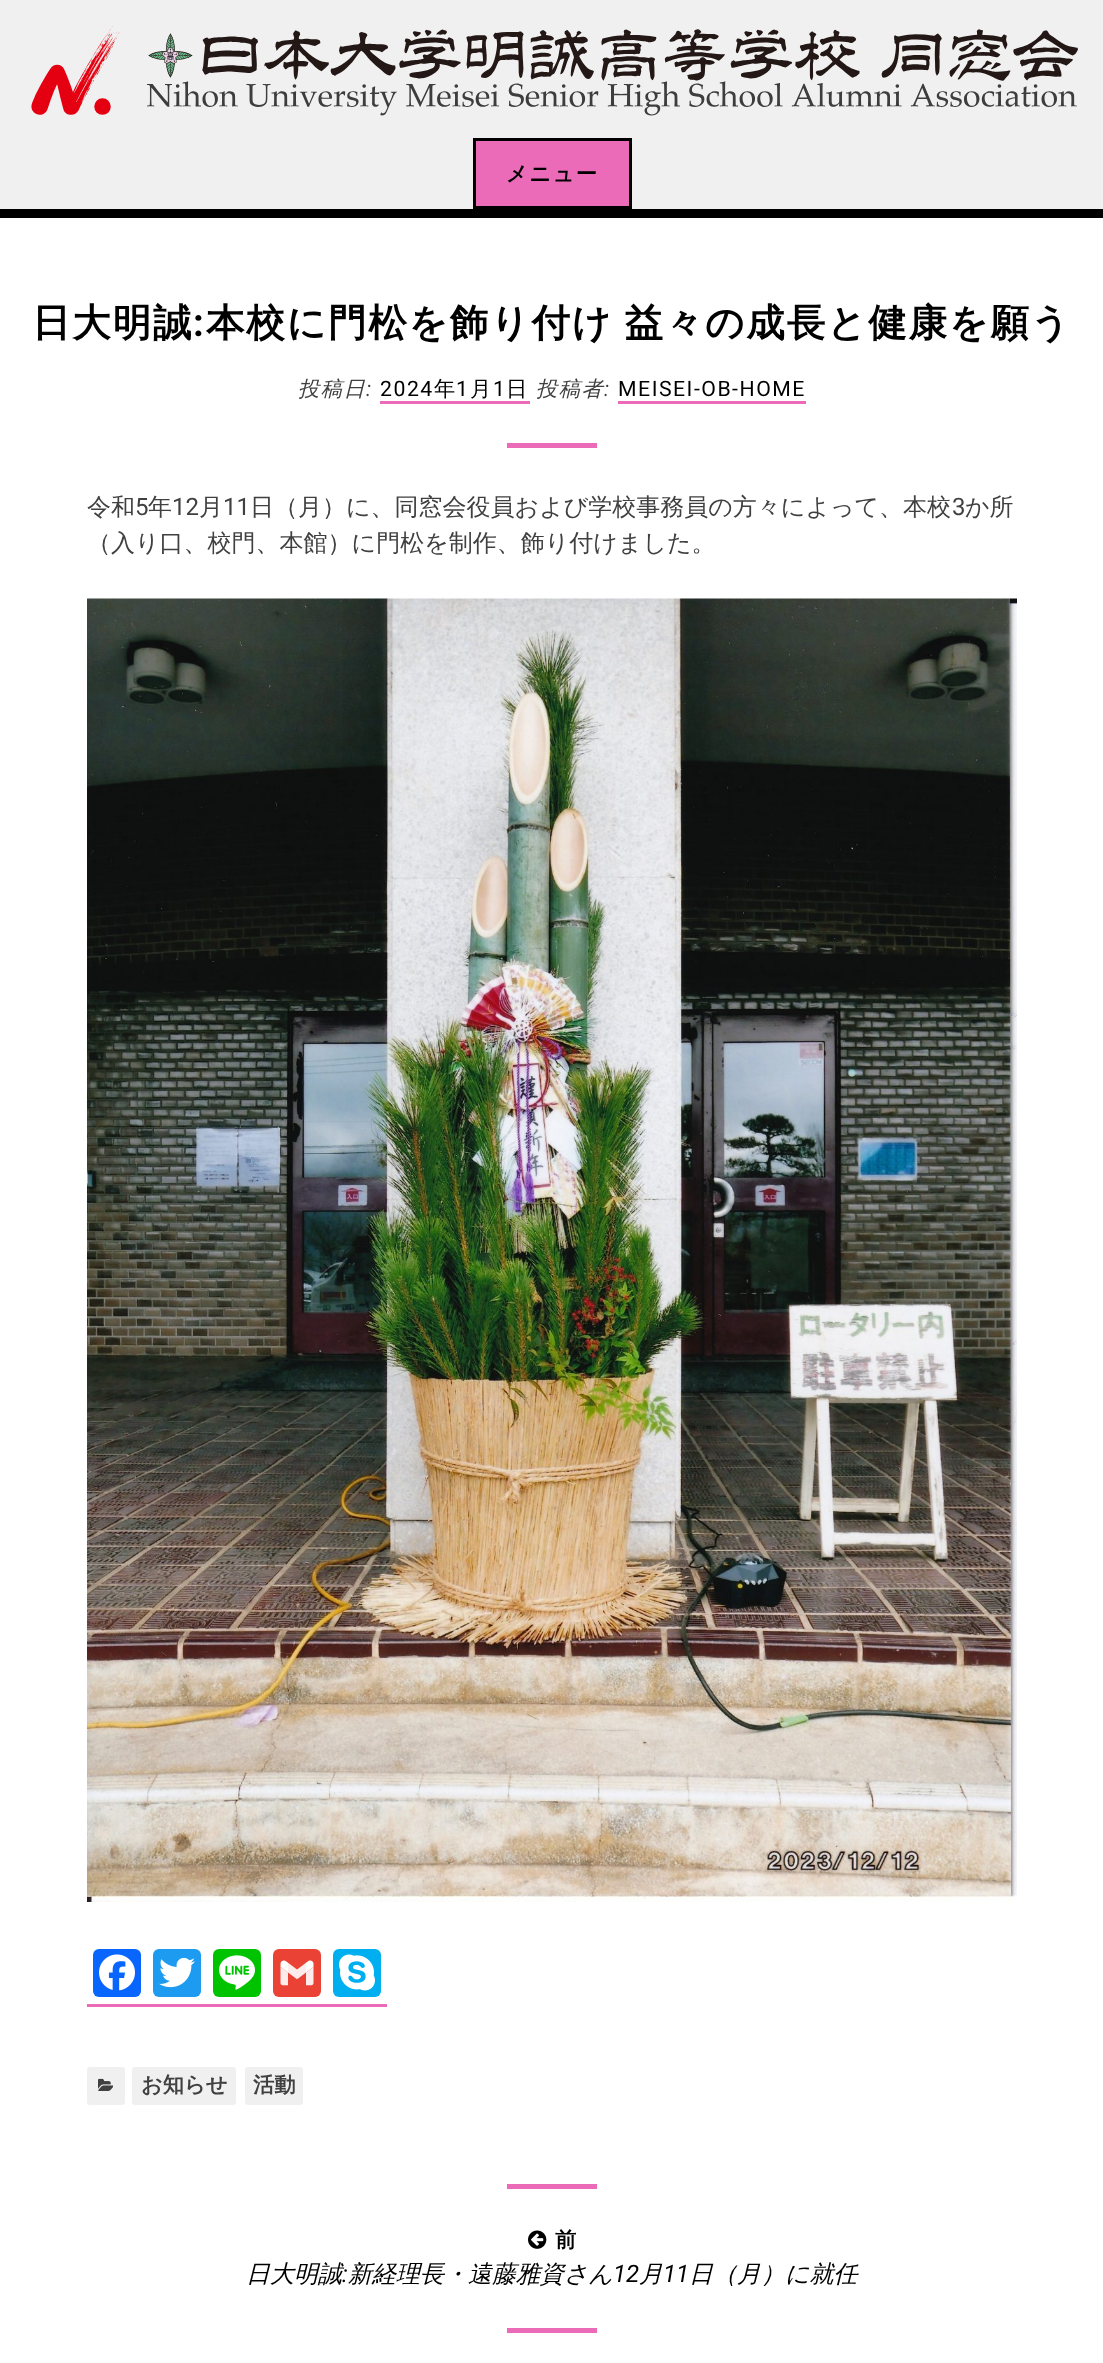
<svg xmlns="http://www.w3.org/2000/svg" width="1103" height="2363">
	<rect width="100%" height="100%" fill="#F0F0F0" />
	<image x="31" y="26" width="1047" height="90" href="assets/img1.png" />
	<rect x="474.5" y="139.5" width="156" height="68" fill="#EB6BB9" stroke="#000000" stroke-width="3" />
	<text x="506" y="181" font-family="WenQuanYi Zen Hei" font-size="21.25" font-weight="700" letter-spacing="1.5" fill="#000000">メニュー</text>
	<rect x="0" y="218" width="1103" height="2145" fill="#FFFFFF" />
	<rect x="0" y="209" width="1103" height="9" fill="#000000" />
	<text x="32" y="336" font-family="WenQuanYi Zen Hei" font-size="38.45" font-weight="700" letter-spacing="1.9" fill="#000000">日大明誠</text>
	<text x="193" y="336" font-family="Roboto" font-size="38.45" font-weight="700" letter-spacing="1.9" fill="#000000">:</text>
	<text x="206" y="336" word-spacing="-2" font-family="WenQuanYi Zen Hei" font-size="38.45" font-weight="700" letter-spacing="1.9" fill="#000000">本校に門松を飾り付け 益々の成長と健康を願う</text>
	<text x="298" y="396" font-family="WenQuanYi Zen Hei" font-size="21.25" font-weight="500" font-style="italic" letter-spacing="1.5" fill="#404040">投稿日</text>
	<text x="366" y="396" font-family="Roboto" font-size="21.25" font-style="italic" letter-spacing="1.5" fill="#404040">:</text>
	<text x="380" y="396" font-family="Roboto" font-size="21.25" letter-spacing="1.5" fill="#000000">2024</text>
	<text x="434" y="396" font-family="WenQuanYi Zen Hei" font-size="21.25" font-weight="500" letter-spacing="1.5" fill="#000000">年</text>
	<text x="456" y="396" font-family="Roboto" font-size="21.25" letter-spacing="1.5" fill="#000000">1</text>
	<text x="470" y="396" font-family="WenQuanYi Zen Hei" font-size="21.25" font-weight="500" letter-spacing="1.5" fill="#000000">月</text>
	<rect x="380" y="401" width="150" height="3" fill="#EB6BB9" />
	<text x="493" y="396" font-family="Roboto" font-size="21.25" letter-spacing="1.5" fill="#000000">1</text>
	<text x="506" y="396" font-family="WenQuanYi Zen Hei" font-size="21.25" font-weight="500" letter-spacing="1.5" fill="#000000">日</text>
	<text x="536" y="396" font-family="WenQuanYi Zen Hei" font-size="21.25" font-weight="500" font-style="italic" letter-spacing="1.5" fill="#404040">投稿者</text>
	<text x="604" y="396" font-family="Roboto" font-size="21.25" font-style="italic" letter-spacing="1.5" fill="#404040">:</text>
	<text x="618" y="396" font-family="Roboto" font-size="21.25" letter-spacing="1.5" fill="#000000">MEISEI-OB-HOME</text>
	<rect x="618" y="401" width="188" height="3" fill="#EB6BB9" />
	<rect x="507" y="443" width="90" height="5" fill="#EB6BB9" />
	<text x="87" y="515" font-family="WenQuanYi Zen Hei" font-size="24" font-weight="500" fill="#404040">令和</text>
	<text x="135" y="515" font-family="Roboto" font-size="24" fill="#404040">5</text>
	<text x="148" y="515" font-family="WenQuanYi Zen Hei" font-size="24" font-weight="500" fill="#404040">年</text>
	<text x="172" y="515" font-family="Roboto" font-size="24" fill="#404040">12</text>
	<text x="199" y="515" font-family="WenQuanYi Zen Hei" font-size="24" font-weight="500" fill="#404040">月</text>
	<text x="223" y="515" font-family="Roboto" font-size="24" fill="#404040">11</text>
	<text x="250" y="515" font-family="WenQuanYi Zen Hei" font-size="24" font-weight="500" fill="#404040">日（月）に、同窓会役員および学校事務員の方々によって、本校</text>
	<text x="952" y="515" font-family="Roboto" font-size="24" fill="#404040">3</text>
	<g font-family="WenQuanYi Zen Hei" font-size="24" font-weight="500" fill="#404040">
		<text x="965" y="515">か所</text>
		<text x="87" y="551">（入り口、校門、本館）に門松を制作、飾り付けました。</text>
	</g>
	<image x="87" y="598" width="930" height="1304" href="assets/img2.png" />
	<rect x="87" y="2004" width="300" height="3" fill="#EB6BB9" />
	<rect x="93" y="1949" width="48" height="48" rx="6" fill="#0866FF" />
	<image x="99" y="1954" width="36" height="37" href="assets/img3.png" />
	<rect x="153" y="1949" width="48" height="48" rx="6" fill="#1D9BF0" />
	<image x="159" y="1957" width="36" height="31" href="assets/img4.png" />
	<rect x="213" y="1949" width="48" height="48" rx="6" fill="#00C300" />
	<image x="219" y="1955" width="36" height="35" href="assets/img5.png" />
	<rect x="273" y="1949" width="48" height="48" rx="6" fill="#EA4335" />
	<image x="280" y="1960" width="34" height="26" href="assets/img6.png" />
	<rect x="333" y="1949" width="48" height="48" rx="6" fill="#00AFF0" />
	<image x="339" y="1954" width="36" height="37" href="assets/img7.png" />
	<rect x="87" y="2067" width="38" height="38" rx="3" fill="#F0F0F0" />
	<image x="98" y="2078" width="15" height="13" href="assets/img8.png" />
	<rect x="132" y="2067" width="104" height="38" rx="3" fill="#F0F0F0" />
	<text x="141" y="2092" font-family="WenQuanYi Zen Hei" font-size="21.25" font-weight="700" fill="#404040">お知らせ</text>
	<rect x="245" y="2067" width="58" height="38" rx="3" fill="#F0F0F0" />
	<text x="253" y="2092" font-family="WenQuanYi Zen Hei" font-size="21.25" font-weight="700" fill="#404040">活動</text>
	<rect x="507" y="2184" width="90" height="5" fill="#EB6BB9" />
	<image x="528" y="2230" width="19" height="19" href="assets/img9.png" />
	<text x="555" y="2247" font-family="WenQuanYi Zen Hei" font-size="21.25" font-weight="700" letter-spacing="1.5" fill="#000000">前</text>
	<g font-family="WenQuanYi Zen Hei" font-size="24" font-weight="500" font-style="italic" fill="#000000">
		<text x="246" y="2282">日大明誠</text>
		<text x="348" y="2282">新経理長・遠藤雅資さん</text>
	</g>
	<text x="613" y="2282" font-family="Roboto" font-size="24" font-style="italic" fill="#000000">12</text>
	<text x="639" y="2282" font-family="WenQuanYi Zen Hei" font-size="24" font-weight="500" font-style="italic" fill="#000000">月</text>
	<text x="663" y="2282" font-family="Roboto" font-size="24" font-style="italic" fill="#000000">11</text>
	<text x="689" y="2282" font-family="WenQuanYi Zen Hei" font-size="24" font-weight="500" font-style="italic" fill="#000000">日（月）に就任</text>
	<text x="342" y="2282" font-family="Roboto" font-size="24" font-style="italic" fill="#000000">:</text>
	<rect x="507" y="2328" width="90" height="5" fill="#EB6BB9" />
</svg>
